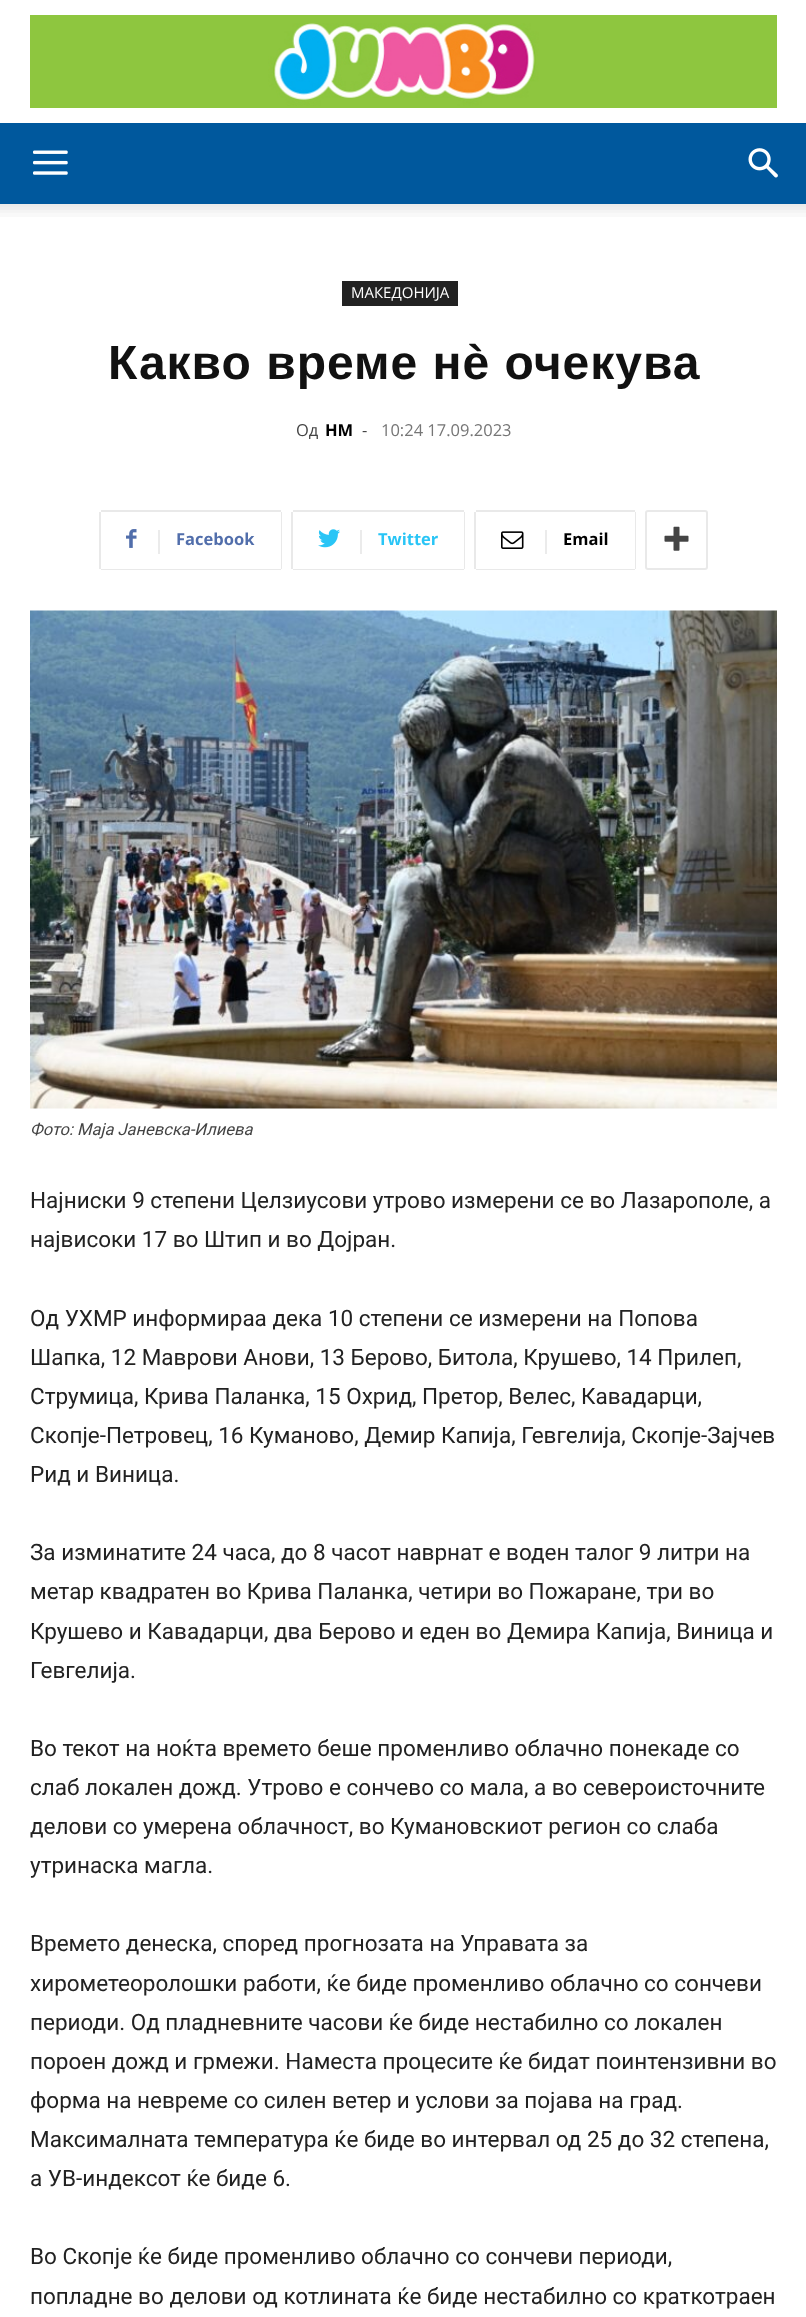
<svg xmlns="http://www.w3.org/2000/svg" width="806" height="2317">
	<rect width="100%" height="100%" fill="#FFFFFF" />
	<image x="30" y="15" width="747" height="93" href="assets/img1.png" />
	<rect x="0" y="123" width="806" height="81" fill="#00589D" />
	<image x="33" y="150" width="35" height="25" href="assets/img2.png" />
	<image x="748" y="148" width="30" height="30" href="assets/img3.png" />
	<image x="0" y="204" width="806" height="13" href="assets/img4.png" />
	<rect x="342" y="281" width="116" height="25" fill="#222222" />
	<text x="351" y="298" font-family="Open Sans" font-size="15" fill="#FFFFFF">МАКЕДОНИЈА</text>
	<text x="108" y="379" font-family="Liberation Sans" font-size="48" font-weight="700" letter-spacing="1" fill="#111111">Какво време нè очекува</text>
	<text x="296" y="436" font-family="Open Sans" font-size="16.5" fill="#444444">Од</text>
	<text x="325" y="436" font-family="Open Sans" font-size="16.5" font-weight="700" fill="#000000">НМ</text>
	<text x="362" y="436" font-family="Open Sans" font-size="16.5" fill="#444444">-</text>
	<text x="381" y="436" font-family="Open Sans" font-size="16.5" fill="#767676">10:24 17.09.2023</text>
	<rect x="99" y="512" width="2" height="57" fill="#E9E9E9" />
	<image x="126" y="529" width="11" height="19" href="assets/img5.png" />
	<rect x="101" y="510" width="180" height="2" fill="#E9E9E9" />
	<rect x="281" y="512" width="1" height="57" fill="#E9E9E9" />
	<rect x="101" y="569" width="180" height="1" fill="#E9E9E9" />
	<rect x="158" y="530" width="2" height="24" fill="#EBEBEB" />
	<text x="176" y="545" font-family="Open Sans" font-size="16.5" font-weight="700" fill="#516EAB">Facebook</text>
	<rect x="291" y="512" width="2" height="57" fill="#E9E9E9" />
	<image x="318" y="529" width="22" height="19" href="assets/img6.png" />
	<rect x="293" y="510" width="171" height="2" fill="#E9E9E9" />
	<rect x="464" y="512" width="1" height="57" fill="#E9E9E9" />
	<rect x="293" y="569" width="171" height="1" fill="#E9E9E9" />
	<rect x="360" y="530" width="2" height="24" fill="#EBEBEB" />
	<text x="378" y="545" font-family="Open Sans" font-size="16.5" font-weight="700" fill="#29C5F6">Twitter</text>
	<rect x="474" y="512" width="2" height="57" fill="#E9E9E9" />
	<image x="501" y="531" width="23" height="18" href="assets/img7.png" />
	<rect x="476" y="510" width="159" height="2" fill="#E9E9E9" />
	<rect x="635" y="512" width="1" height="57" fill="#E9E9E9" />
	<rect x="476" y="569" width="159" height="1" fill="#E9E9E9" />
	<rect x="545" y="530" width="2" height="24" fill="#EBEBEB" />
	<text x="563" y="545" font-family="Open Sans" font-size="16.5" font-weight="700" fill="#000000">Email</text>
	<rect x="646" y="511" width="61" height="58" rx="2" fill="none" stroke="#E9E9E9" stroke-width="2" />
	<image x="664" y="526" width="25" height="25" href="assets/img8.png" />
	<image x="30" y="610" width="747" height="499" href="assets/img9.png" />
	<text x="30" y="1135" font-family="Roboto" font-size="16.5" font-style="italic" fill="#444444">Фото: Маја Јаневска-Илиева</text>
	<g font-family="Roboto" font-size="22.5" fill="#222222">
		<text x="30" y="1208">Најниски 9 степени Целзиусови утрово измерени се во Лазарополе, а</text>
		<text x="30" y="1247">највисоки 17 во Штип и во Дојран.</text>
		<text x="30" y="1326">Од УХМР информираа дека 10 степени се измерени на Попова</text>
		<text x="30" y="1365">Шапка, 12 Маврови Анови, 13 Берово, Битола, Крушево, 14 Прилеп,</text>
		<text x="30" y="1404">Струмица, Крива Паланка, 15 Охрид, Претор, Велес, Кавадарци,</text>
		<text x="30" y="1443">Скопје-Петровец, 16 Куманово, Демир Капија, Гевгелија, Скопје-Зајчев</text>
		<text x="30" y="1482">Рид и Виница.</text>
		<text x="30" y="1560">За изминатите 24 часа, до 8 часот наврнат е воден талог 9 литри на</text>
		<text x="30" y="1599">метар квадратен во Крива Паланка, четири во Пожаране, три во</text>
		<text x="30" y="1639">Крушево и Кавадарци, два Берово и еден во Демира Капија, Виница и</text>
		<text x="30" y="1678">Гевгелија.</text>
		<text x="30" y="1756">Во текот на ноќта времето беше променливо облачно понекаде со</text>
		<text x="30" y="1795">слаб локален дожд. Утрово е сончево со мала, а во североисточните</text>
		<text x="30" y="1834">делови со умерена облачност, во Кумановскиот регион со слаба</text>
		<text x="30" y="1873">утринаска магла.</text>
		<text x="30" y="1951">Времето денеска, според прогнозата на Управата за</text>
		<text x="30" y="1991">хирометеоролошки работи, ќе биде променливо облачно со сончеви</text>
		<text x="30" y="2030">периоди. Од пладневните часови ќе биде нестабилно со локален</text>
		<text x="30" y="2069">пороен дожд и грмежи. Наместа процесите ќе бидат поинтензивни во</text>
		<text x="30" y="2108">форма на невреме со силен ветер и услови за појава на град.</text>
		<text x="30" y="2147">Максималната температура ќе биде во интервал од 25 до 32 степена,</text>
		<text x="30" y="2186">а УВ-индексот ќе биде 6.</text>
		<text x="30" y="2264">Во Скопје ќе биде променливо облачно со сончеви периоди,</text>
		<text x="30" y="2304">попладне во делови од котлината ќе биде нестабилно со краткотраен</text>
	</g>
</svg>
